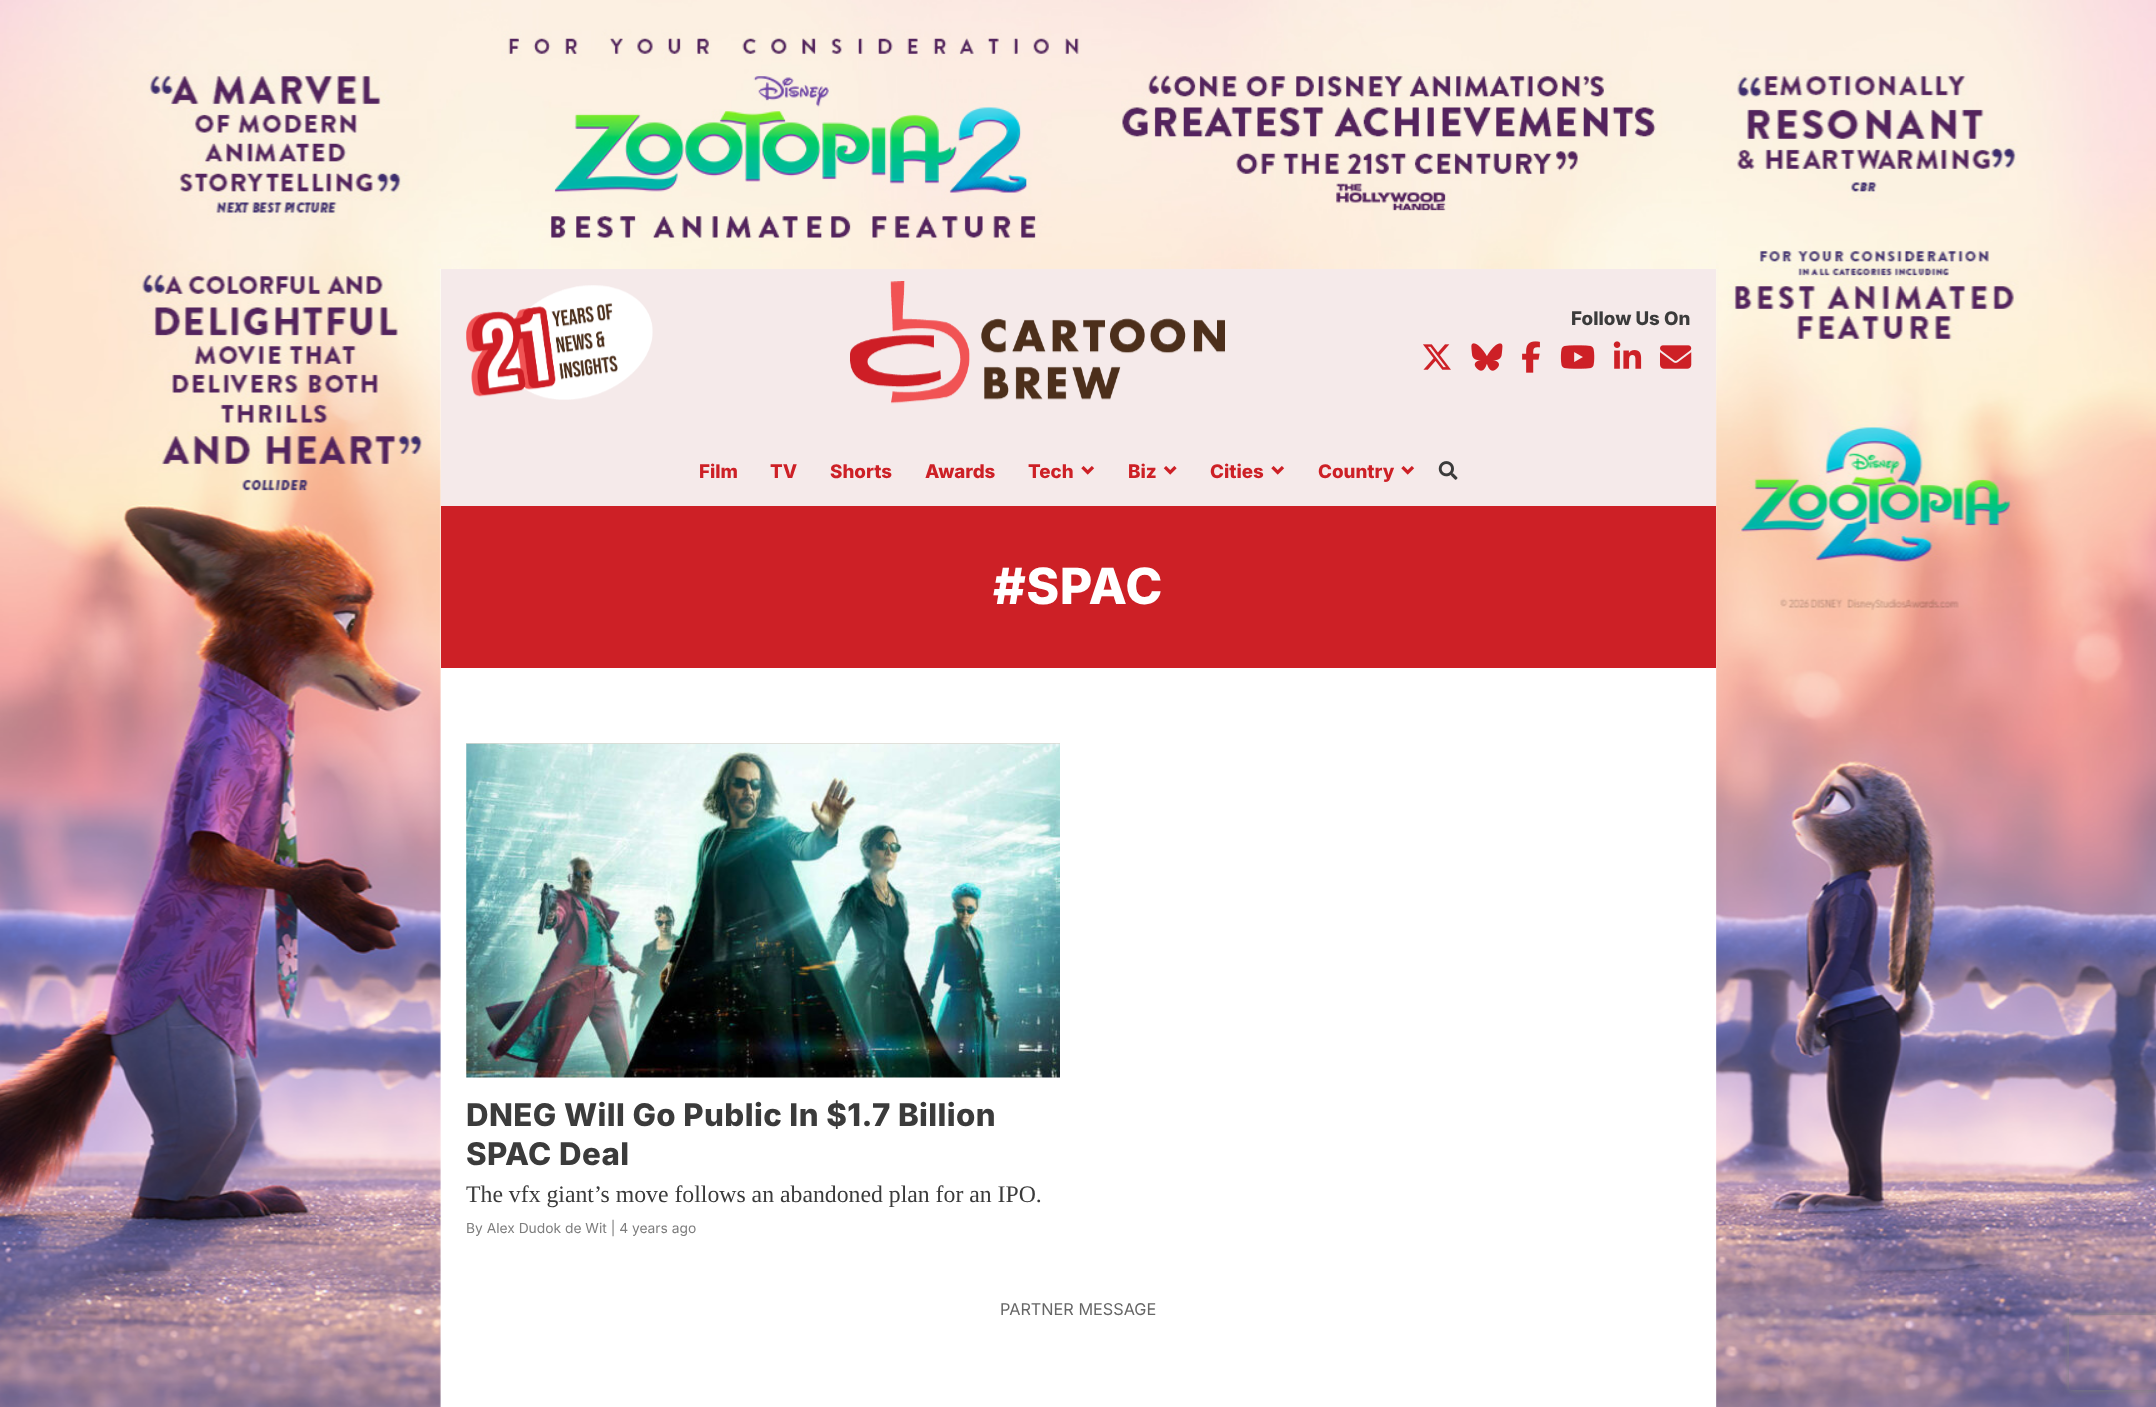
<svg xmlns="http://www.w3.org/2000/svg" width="2156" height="1407">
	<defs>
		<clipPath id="clip1"><path d="M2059 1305H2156V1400H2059ZM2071.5 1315H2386.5C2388 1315 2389 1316 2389 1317.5V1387.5C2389 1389 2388 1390 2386.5 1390H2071.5C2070 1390 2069 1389 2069 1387.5V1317.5C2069 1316 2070 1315 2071.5 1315Z" clip-rule="evenodd" /></clipPath>
	</defs>
	<rect width="100%" height="100%" fill="#FFFFFF" />
	<image x="0" y="0" width="2156" height="1407" href="assets/img1.png" />
	<rect x="441" y="269" width="1275" height="237" fill="#F5EAEA" />
	<image x="441" y="0" width="1275" height="269" href="assets/img2.png" />
	<image x="466" y="285" width="187" height="115" href="assets/img3.png" />
	<image x="850" y="281" width="375" height="123" href="assets/img4.png" />
	<text x="1571" y="325" font-family="Inter" font-size="18.75" font-weight="800" fill="#3B3B3B">Follow Us On</text>
	<image x="1423" y="344" width="28" height="26" href="assets/img5.png" />
	<image x="1471" y="343" width="32" height="28" href="assets/img6.png" />
	<image x="1522" y="341" width="18" height="32" href="assets/img7.png" />
	<image x="1560" y="345" width="35" height="24" href="assets/img8.png" />
	<image x="1613" y="341" width="29" height="28" href="assets/img9.png" />
	<image x="1660" y="345" width="32" height="24" href="assets/img10.png" />
	<g font-family="Inter" font-size="18.75" font-weight="800" fill="#CD2026">
		<text x="699" y="478">Film</text>
		<text x="770" y="478">TV</text>
		<text x="830" y="478">Shorts</text>
		<text x="925" y="478">Awards</text>
		<text x="1028" y="478">Tech</text>
	</g>
	<image x="1081" y="466" width="14" height="9" href="assets/img11.png" />
	<text x="1128" y="478" font-family="Inter" font-size="18.75" font-weight="800" fill="#CD2026">Biz</text>
	<image x="1163" y="466" width="14" height="9" href="assets/img12.png" />
	<text x="1210" y="478" font-family="Inter" font-size="18.75" font-weight="800" fill="#CD2026">Cities</text>
	<image x="1271" y="466" width="14" height="9" href="assets/img11.png" />
	<text x="1318" y="478" font-family="Inter" font-size="18.75" font-weight="800" fill="#CD2026">Country</text>
	<image x="1401" y="466" width="14" height="9" href="assets/img11.png" />
	<image x="1438" y="461" width="20" height="19" href="assets/img13.png" />
	<rect x="441" y="668" width="1275" height="739" fill="#FFFFFF" />
	<rect x="441" y="506" width="1275" height="162" fill="#CD2026" />
	<text x="993" y="604" font-family="Inter" font-size="50" font-weight="800" letter-spacing="0.5" fill="#FFFFFF">#SPAC</text>
	<rect x="466" y="743" width="594" height="1" fill="#DDD9D0" />
	<image x="466" y="743" width="594" height="335" href="assets/img14.png" />
	<g font-family="Inter" font-size="31.25" font-weight="800" letter-spacing="0.4" fill="#3B3B3B">
		<text x="466" y="1126">DNEG Will Go Public In $1.7 Billion</text>
		<text x="466" y="1165">SPAC Deal</text>
	</g>
	<text x="466" y="1202" font-family="Tinos" font-size="23.75" fill="#3B3B3B">The vfx giant’s move follows an abandoned plan for an IPO.</text>
	<text x="466" y="1233" font-family="Inter" font-size="13.8" fill="#7D7D7D">By Alex Dudok de Wit | 4 years ago</text>
	<text x="1000" y="1315" font-family="Inter" font-size="16.25" fill="#666666">PARTNER MESSAGE</text>
	<g clip-path="url(#clip1)">
		<rect x="2069" y="1315" width="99" height="75" rx="2.5" fill="#808080" filter="blur(3px)" />
	</g>
</svg>
